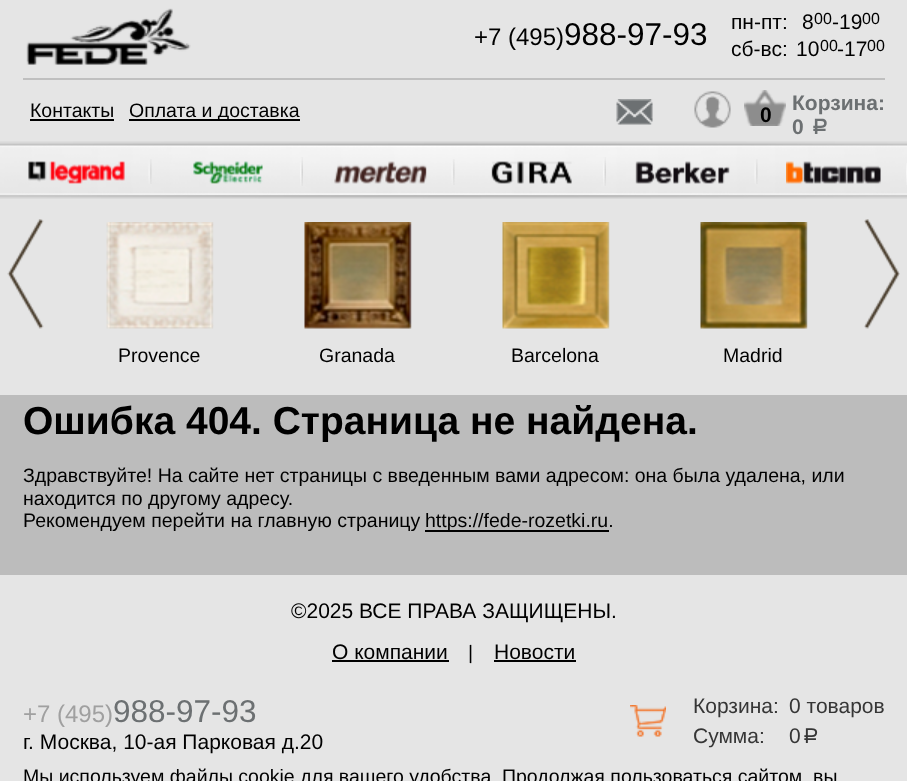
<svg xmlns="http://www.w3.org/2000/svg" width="907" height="781">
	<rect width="100%" height="100%" fill="#BCBCBC" />
	<rect x="0" y="0" width="907" height="395" fill="#E5E5E5" />
	<image x="26" y="8" width="165" height="57" href="assets/img1.png" />
	<text x="474" y="45" font-family="Liberation Sans" font-size="24" fill="#000000">+7 (495)</text>
	<text x="564" y="45" font-family="Liberation Sans" font-size="31.5" fill="#000000">988-97-93</text>
	<g font-family="Liberation Sans" font-size="21" fill="#000000">
		<text x="731" y="29">пн-пт:</text>
		<text x="802" y="29">8</text>
	</g>
	<text x="814" y="24" font-family="Liberation Sans" font-size="16" fill="#000000">00</text>
	<text x="832" y="29" font-family="Liberation Sans" font-size="21" fill="#000000">-19</text>
	<text x="862" y="24" font-family="Liberation Sans" font-size="16" fill="#000000">00</text>
	<g font-family="Liberation Sans" font-size="21" fill="#000000">
		<text x="731" y="56">сб-вс:</text>
		<text x="796" y="56">10</text>
	</g>
	<text x="820" y="51" font-family="Liberation Sans" font-size="16" fill="#000000">00</text>
	<text x="837" y="56" font-family="Liberation Sans" font-size="21" fill="#000000">-17</text>
	<text x="867" y="51" font-family="Liberation Sans" font-size="16" fill="#000000">00</text>
	<rect x="23" y="78" width="862" height="2" fill="#BFBFBF" />
	<text x="30" y="117" font-family="Liberation Sans" font-size="19.5" fill="#000000">Контакты</text>
	<rect x="30" y="119" width="84" height="2" fill="#000000" />
	<rect x="129" y="119" width="171" height="2" fill="#000000" />
	<text x="129" y="117" font-family="Liberation Sans" font-size="19.5" fill="#000000">Оплата и доставка</text>
	<image x="616" y="99" width="37" height="26" href="assets/img2.png" />
	<image x="694" y="91" width="37" height="37" href="assets/img3.png" />
	<image x="744" y="90" width="42" height="36" href="assets/img4.png" />
	<text x="760" y="122" font-family="Liberation Sans" font-size="21" font-weight="700" fill="#000000">0</text>
	<g font-family="Liberation Sans" font-size="21" font-weight="700" fill="#6C7072">
		<text x="792" y="110">Корзина:</text>
		<text x="792" y="134">0</text>
	</g>
	<text x="810" y="134" font-family="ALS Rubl" font-size="21" font-weight="700" fill="#6C7072">a</text>
	<image x="0" y="141" width="907" height="58" href="assets/img5.png" />
	<image x="28" y="161" width="97" height="23" href="assets/img6.png" />
	<image x="148" y="159" width="4" height="25" href="assets/img7.png" />
	<image x="193" y="161" width="70" height="23" href="assets/img8.png" />
	<image x="300" y="157" width="3" height="29" href="assets/img9.png" />
	<image x="334" y="161" width="93" height="23" href="assets/img10.png" />
	<image x="451" y="159" width="4" height="26" href="assets/img11.png" />
	<image x="491" y="161" width="81" height="23" href="assets/img12.png" />
	<image x="603" y="157" width="3" height="29" href="assets/img13.png" />
	<image x="635" y="161" width="95" height="23" href="assets/img14.png" />
	<image x="754" y="159" width="4" height="25" href="assets/img15.png" />
	<image x="786" y="161" width="95" height="23" href="assets/img16.png" />
	<image x="906" y="163" width="1" height="22" href="assets/img17.png" />
	<image x="7" y="219" width="37" height="110" href="assets/img18.png" />
	<image x="864" y="219" width="36" height="110" href="assets/img19.png" />
	<image x="106" y="222" width="108" height="107" href="assets/img20.png" />
	<text x="118" y="362" font-family="Liberation Sans" font-size="19.5" fill="#000000">Provence</text>
	<image x="304" y="222" width="108" height="107" href="assets/img21.png" />
	<text x="319" y="362" font-family="Liberation Sans" font-size="19.5" fill="#000000">Granada</text>
	<image x="502" y="222" width="108" height="107" href="assets/img22.png" />
	<text x="511" y="362" font-family="Liberation Sans" font-size="19.5" fill="#000000">Barcelona</text>
	<image x="700" y="222" width="108" height="107" href="assets/img23.png" />
	<text x="723" y="362" font-family="Liberation Sans" font-size="19.5" fill="#000000">Madrid</text>
	<text x="23" y="434" font-family="Liberation Sans" font-size="39" font-weight="700" fill="#000000">Ошибка 404. Страница не найдена.</text>
	<g font-family="Liberation Sans" font-size="19.5" fill="#000000">
		<text x="23" y="482">Здравствуйте! На сайте нет страницы с введенным вами адресом: она была удалена, или</text>
		<text x="23" y="505">находится по другому адресу.</text>
		<text x="23" y="527">Рекомендуем перейти на главную страницу</text>
	</g>
	<rect x="425" y="530" width="184" height="2" fill="#000000" />
	<text x="425" y="527" font-family="Liberation Sans" font-size="19.5" fill="#000000">https://fede-rozetki.ru.</text>
	<rect x="0" y="575" width="907" height="206" fill="#E5E5E5" />
	<g font-family="Liberation Sans" font-size="21" fill="#000000">
		<text x="291" y="618">©2025 ВСЕ ПРАВА ЗАЩИЩЕНЫ.</text>
		<text x="332" y="659">О компании</text>
	</g>
	<rect x="332" y="660" width="117" height="2" fill="#000000" />
	<text x="468" y="659" font-family="Liberation Sans" font-size="19.5" fill="#000000">|</text>
	<text x="494" y="659" font-family="Liberation Sans" font-size="21" fill="#000000">Новости</text>
	<rect x="494" y="660" width="82" height="2" fill="#000000" />
	<text x="23" y="722" font-family="Liberation Sans" font-size="24" fill="#A0A0A0">+7 (495)</text>
	<text x="113" y="722" font-family="Liberation Sans" font-size="31.5" fill="#6C7072">988-97-93</text>
	<text x="23" y="749" font-family="Liberation Sans" font-size="21" fill="#000000">г. Москва, 10-ая Парковая д.20</text>
	<image x="630" y="705" width="36" height="32" href="assets/img24.png" />
	<g font-family="Liberation Sans" font-size="21" fill="#363636">
		<text x="693" y="713">Корзина:</text>
		<text x="789" y="713">0 товаров</text>
		<text x="693" y="743">Сумма:</text>
		<text x="789" y="743">0</text>
	</g>
	<text x="801" y="743" font-family="ALS Rubl" font-size="21" fill="#363636">a</text>
	<g font-family="Liberation Sans" font-size="19.5" fill="#000000">
		<text x="23" y="783">Мы используем файлы cookie для вашего удобства</text>
		<text x="502" y="783">Продолжая пользоваться сайтом, вы</text>
	</g>
</svg>
